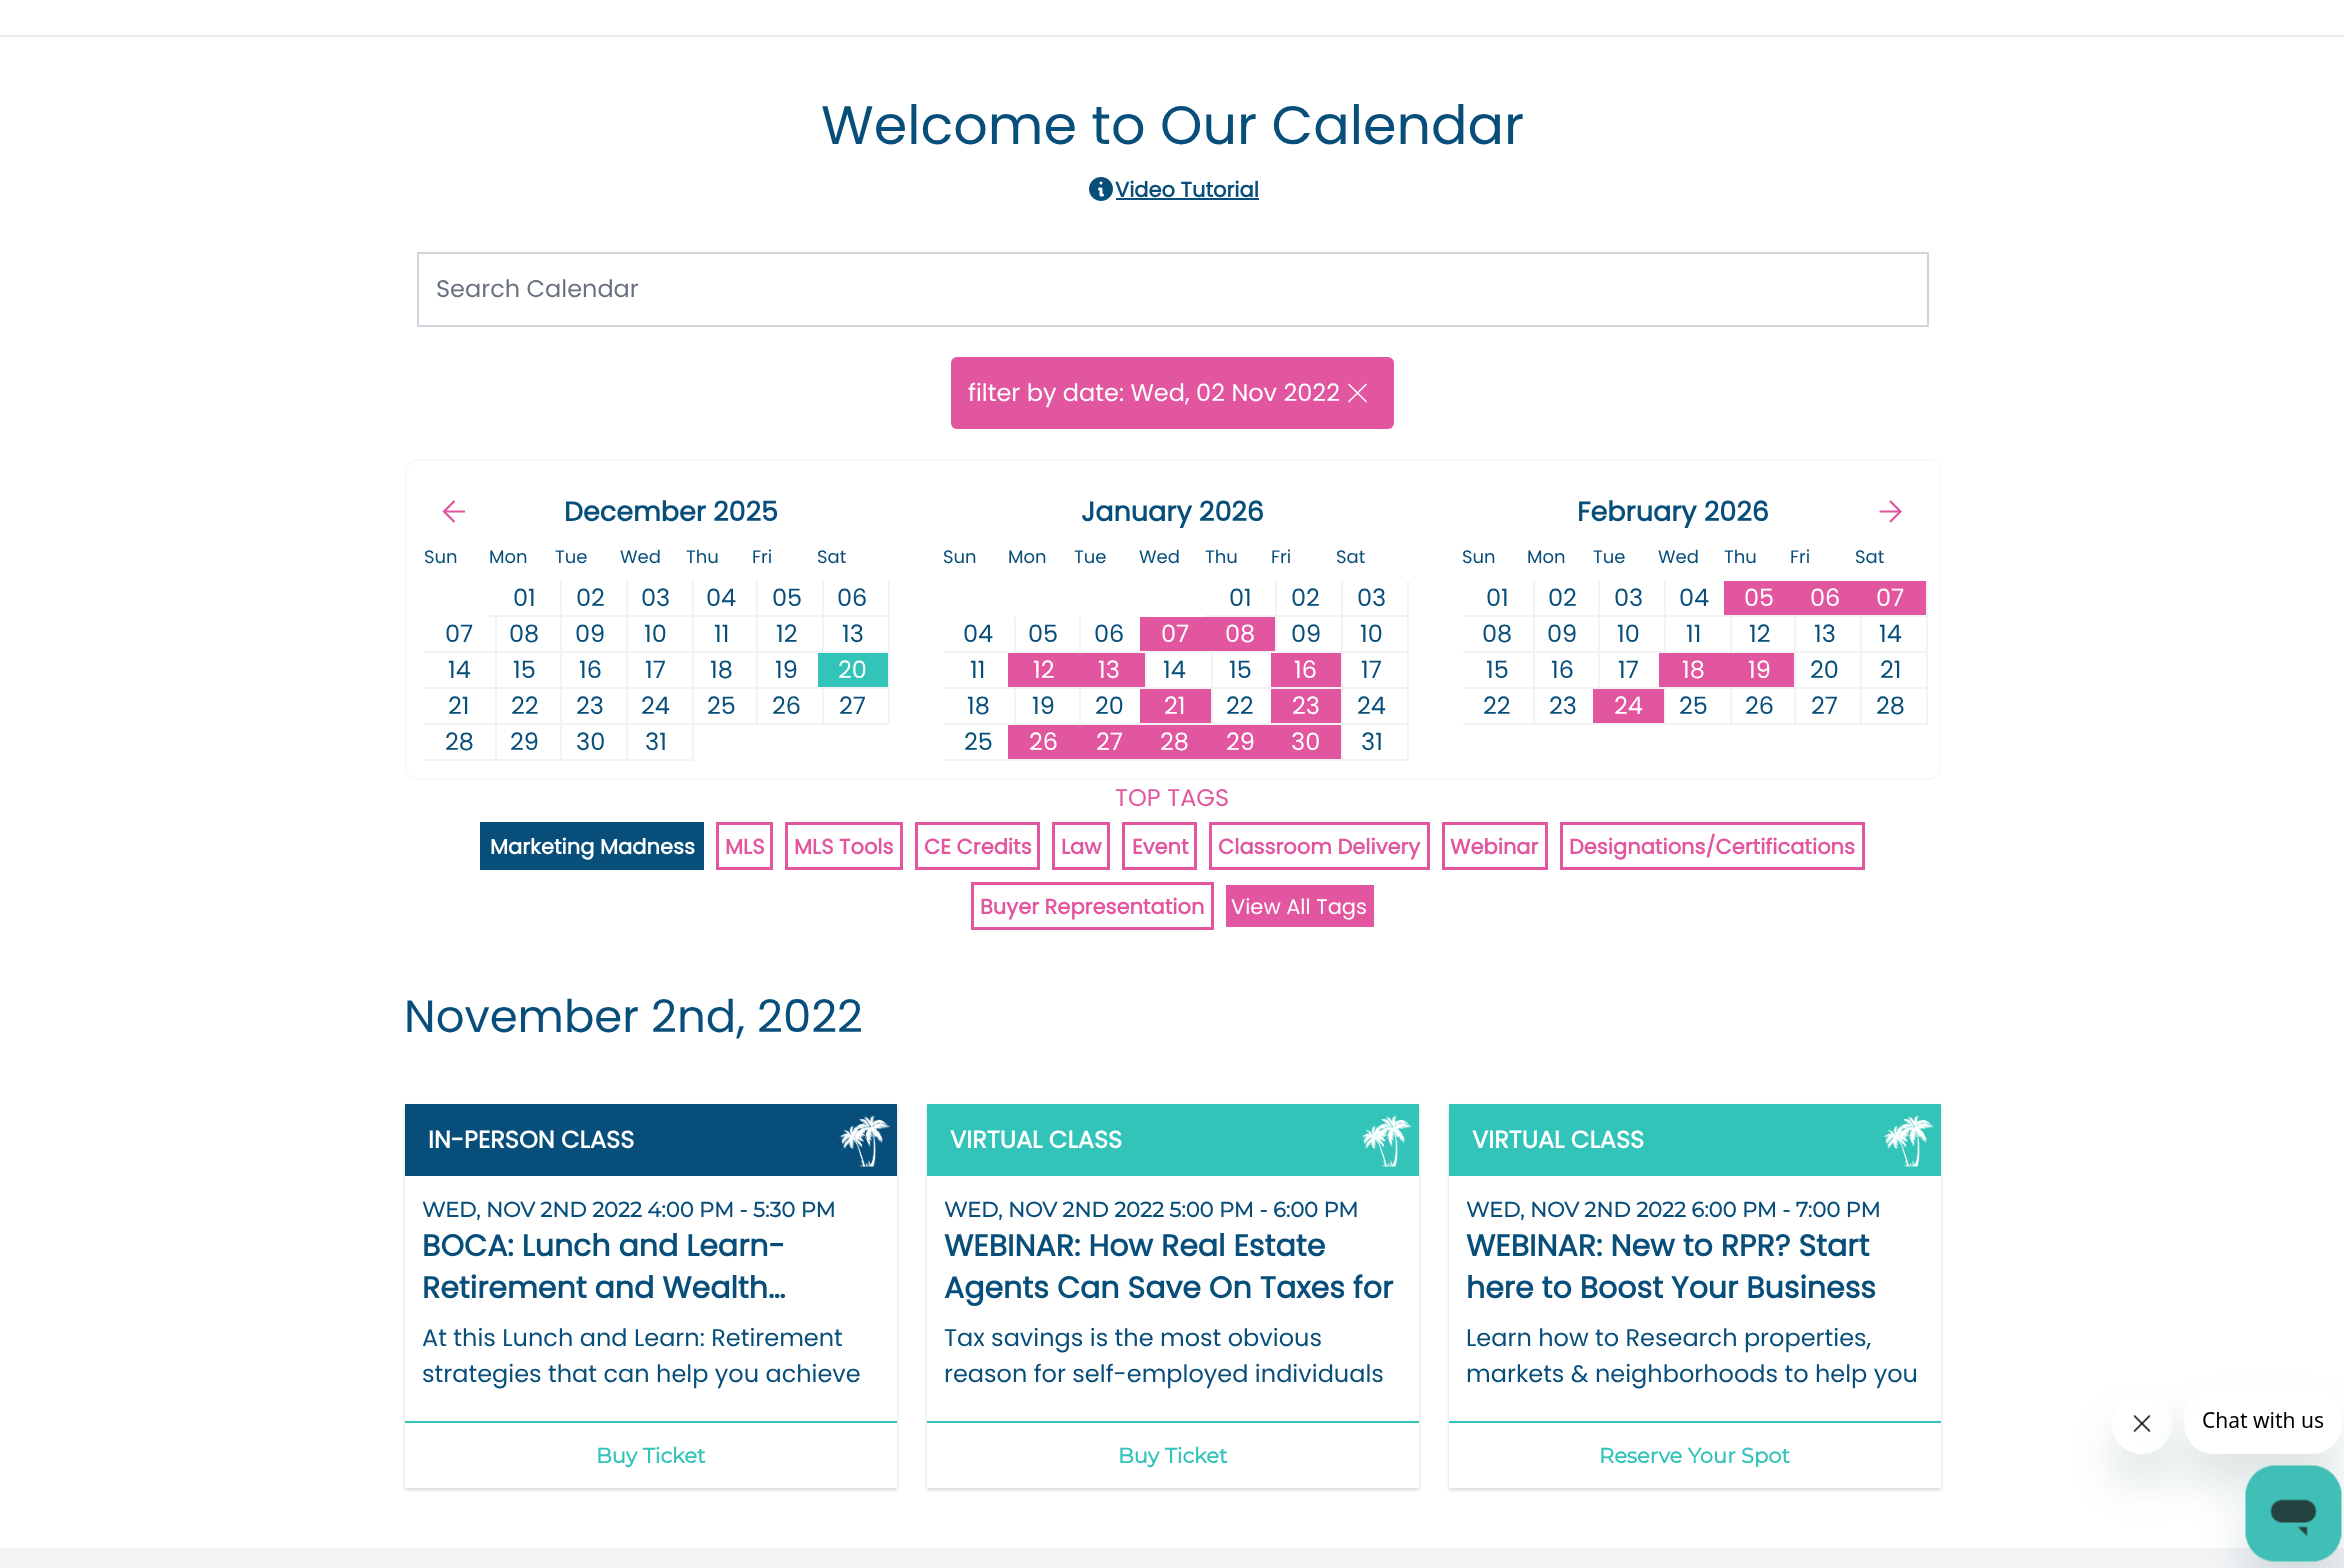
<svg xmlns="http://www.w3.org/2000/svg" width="2344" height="1568">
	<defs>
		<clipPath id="clip1"><path d="M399 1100H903V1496H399ZM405 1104H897V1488H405Z" clip-rule="evenodd" /></clipPath>
		<clipPath id="clip2"><path d="M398 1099H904V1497H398ZM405 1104H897V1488H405Z" clip-rule="evenodd" /></clipPath>
		<clipPath id="clip3"><path d="M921 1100H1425V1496H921ZM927 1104H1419V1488H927Z" clip-rule="evenodd" /></clipPath>
		<clipPath id="clip4"><path d="M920 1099H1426V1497H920ZM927 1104H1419V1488H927Z" clip-rule="evenodd" /></clipPath>
		<clipPath id="clip5"><path d="M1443 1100H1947V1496H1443ZM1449 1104H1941V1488H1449Z" clip-rule="evenodd" /></clipPath>
		<clipPath id="clip6"><path d="M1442 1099H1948V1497H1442ZM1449 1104H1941V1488H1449Z" clip-rule="evenodd" /></clipPath>
		<clipPath id="clip7"><path d="M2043 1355H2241V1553H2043ZM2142 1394C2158.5 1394 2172 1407.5 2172 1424C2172 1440.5 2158.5 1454 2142 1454C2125.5 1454 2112 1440.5 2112 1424C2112 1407.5 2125.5 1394 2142 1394Z" clip-rule="evenodd" /></clipPath>
		<clipPath id="clip8"><path d="M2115 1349H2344V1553H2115ZM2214 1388H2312C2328.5 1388 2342 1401.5 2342 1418V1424C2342 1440.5 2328.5 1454 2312 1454H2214C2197.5 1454 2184 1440.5 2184 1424V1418C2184 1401.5 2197.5 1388 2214 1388Z" clip-rule="evenodd" /></clipPath>
	</defs>
	<rect width="100%" height="100%" fill="#FFFFFF" />
	<rect x="0" y="35" width="2344" height="2" fill="#E9ECEF" />
	<text x="821" y="144" font-family="Poppins" font-size="54" fill="#084E7B">Welcome to Our Calendar</text>
	<image x="1089" y="177" width="24" height="24" href="assets/img1.png" />
	<text x="1115" y="197" font-family="Poppins" font-size="21" font-weight="700" fill="#084E7B">Video Tutorial</text>
	<rect x="1116" y="198" width="143" height="2" fill="#084E7B" />
	<rect x="418" y="253" width="1510" height="73" fill="none" stroke="#D1D5DB" stroke-width="2" />
	<text x="436" y="297" font-family="Poppins" font-size="24" fill="#6B7280">Search Calendar</text>
	<rect x="951" y="357" width="443" height="72" rx="6" fill="#E256A0" />
	<text x="968" y="401" font-family="Poppins" font-size="24" fill="#FFFFFF">filter by date: Wed, 02 Nov 2022</text>
	<path d="M1366.5 384L1348.5 402M1348.5 384L1366.5 402" fill="none" stroke="#FFFFFF" stroke-width="1.5" />
	<rect x="406" y="460" width="1534" height="319" rx="11" fill="none" stroke="#F8F9FA" stroke-width="2" />
	<path d="M465 511.5H444M454.5 522L444 511.5L454.5 501" fill="none" stroke="#E256A0" stroke-width="2.2" />
	<text x="564" y="521" font-family="Poppins" font-size="27" font-weight="700" fill="#084E7B">December 2025</text>
	<g font-family="Poppins" font-size="18" fill="#084E7B">
		<text x="424" y="563">Sun</text>
		<text x="489" y="563">Mon</text>
		<text x="555" y="563">Tue</text>
		<text x="620" y="563">Wed</text>
		<text x="686" y="563">Thu</text>
		<text x="752" y="563">Fri</text>
		<text x="817" y="563">Sat</text>
	</g>
	<rect x="560" y="581" width="2" height="180" fill="#F1F3F5" />
	<rect x="489" y="615" width="72" height="2" fill="#F1F3F5" />
	<text x="513" y="606" font-family="Poppins" font-size="24" fill="#084E7B">01</text>
	<rect x="626" y="581" width="2" height="180" fill="#F1F3F5" />
	<rect x="555" y="615" width="72" height="2" fill="#F1F3F5" />
	<text x="576" y="606" font-family="Poppins" font-size="24" fill="#084E7B">02</text>
	<rect x="692" y="581" width="2" height="180" fill="#F1F3F5" />
	<rect x="621" y="615" width="72" height="2" fill="#F1F3F5" />
	<text x="641" y="606" font-family="Poppins" font-size="24" fill="#084E7B">03</text>
	<rect x="756" y="581" width="2" height="144" fill="#F1F3F5" />
	<rect x="686" y="615" width="72" height="2" fill="#F1F3F5" />
	<text x="706" y="606" font-family="Poppins" font-size="24" fill="#084E7B">04</text>
	<rect x="822" y="581" width="2" height="72" fill="#F1F3F5" />
	<rect x="752" y="615" width="72" height="2" fill="#F1F3F5" />
	<text x="772" y="606" font-family="Poppins" font-size="24" fill="#084E7B">05</text>
	<rect x="888" y="581" width="2" height="144" fill="#F1F3F5" />
	<rect x="818" y="615" width="72" height="2" fill="#F1F3F5" />
	<text x="837" y="606" font-family="Poppins" font-size="24" fill="#084E7B">06</text>
	<rect x="495" y="617" width="2" height="144" fill="#F1F3F5" />
	<rect x="425" y="651" width="465" height="2" fill="#F1F3F5" />
	<g font-family="Poppins" font-size="24" fill="#084E7B">
		<text x="445" y="642">07</text>
		<text x="509" y="642">08</text>
		<text x="575" y="642">09</text>
		<text x="644" y="642">10</text>
		<text x="714" y="642">11</text>
		<text x="776" y="642">12</text>
		<text x="842" y="642">13</text>
	</g>
	<rect x="425" y="687" width="465" height="2" fill="#F1F3F5" />
	<g font-family="Poppins" font-size="24" fill="#084E7B">
		<text x="448" y="678">14</text>
		<text x="513" y="678">15</text>
		<text x="579" y="678">16</text>
		<text x="645" y="678">17</text>
		<text x="710" y="678">18</text>
		<text x="775" y="678">19</text>
	</g>
	<rect x="818" y="653" width="70" height="34" fill="#33C4B9" />
	<text x="838" y="678" font-family="Poppins" font-size="24" fill="#FFFFFF">20</text>
	<rect x="425" y="723" width="333" height="2" fill="#F1F3F5" />
	<g font-family="Poppins" font-size="24" fill="#084E7B">
		<text x="448" y="714">21</text>
		<text x="511" y="714">22</text>
		<text x="576" y="714">23</text>
		<text x="641" y="714">24</text>
		<text x="707" y="714">25</text>
	</g>
	<rect x="822" y="689" width="2" height="36" fill="#F1F3F5" />
	<rect x="752" y="723" width="138" height="2" fill="#F1F3F5" />
	<g font-family="Poppins" font-size="24" fill="#084E7B">
		<text x="772" y="714">26</text>
		<text x="839" y="714">27</text>
	</g>
	<rect x="425" y="759" width="268" height="2" fill="#F1F3F5" />
	<g font-family="Poppins" font-size="24" fill="#084E7B">
		<text x="445" y="750">28</text>
		<text x="510" y="750">29</text>
		<text x="576" y="750">30</text>
		<text x="645" y="750">31</text>
	</g>
	<text x="1081" y="521" font-family="Poppins" font-size="27" font-weight="700" fill="#084E7B">January 2026</text>
	<g font-family="Poppins" font-size="18" fill="#084E7B">
		<text x="943" y="563">Sun</text>
		<text x="1008" y="563">Mon</text>
		<text x="1074" y="563">Tue</text>
		<text x="1139" y="563">Wed</text>
		<text x="1205" y="563">Thu</text>
		<text x="1271" y="563">Fri</text>
		<text x="1336" y="563">Sat</text>
	</g>
	<rect x="1275" y="581" width="2" height="72" fill="#F1F3F5" />
	<rect x="1205" y="615" width="72" height="2" fill="#F1F3F5" />
	<text x="1229" y="606" font-family="Poppins" font-size="24" fill="#084E7B">01</text>
	<rect x="1341" y="581" width="2" height="180" fill="#F1F3F5" />
	<rect x="1271" y="615" width="72" height="2" fill="#F1F3F5" />
	<text x="1291" y="606" font-family="Poppins" font-size="24" fill="#084E7B">02</text>
	<rect x="1407" y="581" width="2" height="180" fill="#F1F3F5" />
	<rect x="1337" y="615" width="72" height="2" fill="#F1F3F5" />
	<text x="1357" y="606" font-family="Poppins" font-size="24" fill="#084E7B">03</text>
	<rect x="1014" y="617" width="2" height="36" fill="#F1F3F5" />
	<rect x="944" y="651" width="72" height="2" fill="#F1F3F5" />
	<text x="963" y="642" font-family="Poppins" font-size="24" fill="#084E7B">04</text>
	<rect x="1079" y="617" width="2" height="36" fill="#F1F3F5" />
	<rect x="1008" y="651" width="401" height="2" fill="#F1F3F5" />
	<g font-family="Poppins" font-size="24" fill="#084E7B">
		<text x="1028" y="642">05</text>
		<text x="1094" y="642">06</text>
	</g>
	<rect x="1140" y="617" width="135" height="34" fill="#E256A0" />
	<g font-family="Poppins" font-size="24" fill="#FFFFFF">
		<text x="1161" y="642">07</text>
		<text x="1225" y="642">08</text>
	</g>
	<g font-family="Poppins" font-size="24" fill="#084E7B">
		<text x="1291" y="642">09</text>
		<text x="1360" y="642">10</text>
	</g>
	<rect x="944" y="687" width="136" height="2" fill="#F1F3F5" />
	<text x="970" y="678" font-family="Poppins" font-size="24" fill="#084E7B">11</text>
	<rect x="1008" y="653" width="137" height="34" fill="#E256A0" />
	<text x="1033" y="678" font-family="Poppins" font-size="24" fill="#FFFFFF">12</text>
	<rect x="1145" y="653" width="2" height="36" fill="#F1F3F5" />
	<rect x="1074" y="687" width="72" height="2" fill="#F1F3F5" />
	<text x="1098" y="678" font-family="Poppins" font-size="24" fill="#FFFFFF">13</text>
	<rect x="1211" y="653" width="2" height="72" fill="#F1F3F5" />
	<rect x="1140" y="687" width="269" height="2" fill="#F1F3F5" />
	<g font-family="Poppins" font-size="24" fill="#084E7B">
		<text x="1163" y="678">14</text>
		<text x="1229" y="678">15</text>
	</g>
	<rect x="1271" y="653" width="70" height="34" fill="#E256A0" />
	<text x="1294" y="678" font-family="Poppins" font-size="24" fill="#FFFFFF">16</text>
	<text x="1361" y="678" font-family="Poppins" font-size="24" fill="#084E7B">17</text>
	<rect x="1014" y="689" width="2" height="36" fill="#F1F3F5" />
	<rect x="944" y="723" width="72" height="2" fill="#F1F3F5" />
	<text x="967" y="714" font-family="Poppins" font-size="24" fill="#084E7B">18</text>
	<rect x="1079" y="689" width="2" height="36" fill="#F1F3F5" />
	<rect x="1008" y="723" width="401" height="2" fill="#F1F3F5" />
	<g font-family="Poppins" font-size="24" fill="#084E7B">
		<text x="1032" y="714">19</text>
		<text x="1095" y="714">20</text>
	</g>
	<rect x="1140" y="689" width="71" height="34" fill="#E256A0" />
	<text x="1164" y="714" font-family="Poppins" font-size="24" fill="#FFFFFF">21</text>
	<text x="1226" y="714" font-family="Poppins" font-size="24" fill="#084E7B">22</text>
	<rect x="1271" y="689" width="70" height="34" fill="#E256A0" />
	<text x="1292" y="714" font-family="Poppins" font-size="24" fill="#FFFFFF">23</text>
	<text x="1357" y="714" font-family="Poppins" font-size="24" fill="#084E7B">24</text>
	<rect x="944" y="759" width="465" height="2" fill="#F1F3F5" />
	<text x="964" y="750" font-family="Poppins" font-size="24" fill="#084E7B">25</text>
	<rect x="1008" y="725" width="333" height="34" fill="#E256A0" />
	<g font-family="Poppins" font-size="24" fill="#FFFFFF">
		<text x="1029" y="750">26</text>
		<text x="1096" y="750">27</text>
		<text x="1160" y="750">28</text>
		<text x="1226" y="750">29</text>
		<text x="1291" y="750">30</text>
	</g>
	<text x="1361" y="750" font-family="Poppins" font-size="24" fill="#084E7B">31</text>
	<text x="1577" y="521" font-family="Poppins" font-size="27" font-weight="700" fill="#084E7B">February 2026</text>
	<path d="M1879.5 511.5H1900.5M1890 501L1900.5 511.5L1890 522" fill="none" stroke="#E256A0" stroke-width="2.2" />
	<g font-family="Poppins" font-size="18" fill="#084E7B">
		<text x="1462" y="563">Sun</text>
		<text x="1527" y="563">Mon</text>
		<text x="1593" y="563">Tue</text>
		<text x="1658" y="563">Wed</text>
		<text x="1724" y="563">Thu</text>
		<text x="1790" y="563">Fri</text>
		<text x="1855" y="563">Sat</text>
	</g>
	<rect x="1533" y="581" width="2" height="144" fill="#F1F3F5" />
	<rect x="1463" y="615" width="72" height="2" fill="#F1F3F5" />
	<text x="1486" y="606" font-family="Poppins" font-size="24" fill="#084E7B">01</text>
	<rect x="1598" y="581" width="2" height="108" fill="#F1F3F5" />
	<rect x="1527" y="615" width="72" height="2" fill="#F1F3F5" />
	<text x="1548" y="606" font-family="Poppins" font-size="24" fill="#084E7B">02</text>
	<rect x="1664" y="581" width="2" height="72" fill="#F1F3F5" />
	<rect x="1593" y="615" width="269" height="2" fill="#F1F3F5" />
	<g font-family="Poppins" font-size="24" fill="#084E7B">
		<text x="1614" y="606">03</text>
		<text x="1679" y="606">04</text>
	</g>
	<rect x="1724" y="581" width="202" height="34" fill="#E256A0" />
	<g font-family="Poppins" font-size="24" fill="#FFFFFF">
		<text x="1744" y="606">05</text>
		<text x="1810" y="606">06</text>
	</g>
	<rect x="1926" y="581" width="2" height="144" fill="#F1F3F5" />
	<rect x="1856" y="615" width="72" height="2" fill="#F1F3F5" />
	<text x="1876" y="606" font-family="Poppins" font-size="24" fill="#FFFFFF">07</text>
	<rect x="1463" y="651" width="202" height="2" fill="#F1F3F5" />
	<g font-family="Poppins" font-size="24" fill="#084E7B">
		<text x="1482" y="642">08</text>
		<text x="1547" y="642">09</text>
		<text x="1617" y="642">10</text>
	</g>
	<rect x="1730" y="617" width="2" height="36" fill="#F1F3F5" />
	<rect x="1659" y="651" width="72" height="2" fill="#F1F3F5" />
	<text x="1686" y="642" font-family="Poppins" font-size="24" fill="#084E7B">11</text>
	<rect x="1794" y="617" width="2" height="108" fill="#F1F3F5" />
	<rect x="1724" y="651" width="72" height="2" fill="#F1F3F5" />
	<text x="1749" y="642" font-family="Poppins" font-size="24" fill="#084E7B">12</text>
	<rect x="1860" y="617" width="2" height="108" fill="#F1F3F5" />
	<rect x="1790" y="651" width="138" height="2" fill="#F1F3F5" />
	<g font-family="Poppins" font-size="24" fill="#084E7B">
		<text x="1814" y="642">13</text>
		<text x="1879" y="642">14</text>
	</g>
	<rect x="1463" y="687" width="465" height="2" fill="#F1F3F5" />
	<g font-family="Poppins" font-size="24" fill="#084E7B">
		<text x="1486" y="678">15</text>
		<text x="1551" y="678">16</text>
		<text x="1618" y="678">17</text>
	</g>
	<rect x="1659" y="653" width="135" height="34" fill="#E256A0" />
	<g font-family="Poppins" font-size="24" fill="#FFFFFF">
		<text x="1682" y="678">18</text>
		<text x="1748" y="678">19</text>
	</g>
	<g font-family="Poppins" font-size="24" fill="#084E7B">
		<text x="1810" y="678">20</text>
		<text x="1880" y="678">21</text>
	</g>
	<rect x="1463" y="723" width="136" height="2" fill="#F1F3F5" />
	<g font-family="Poppins" font-size="24" fill="#084E7B">
		<text x="1483" y="714">22</text>
		<text x="1549" y="714">23</text>
	</g>
	<rect x="1593" y="689" width="71" height="34" fill="#E256A0" />
	<rect x="1664" y="689" width="2" height="36" fill="#F1F3F5" />
	<rect x="1593" y="723" width="72" height="2" fill="#F1F3F5" />
	<text x="1614" y="714" font-family="Poppins" font-size="24" fill="#FFFFFF">24</text>
	<rect x="1730" y="689" width="2" height="36" fill="#F1F3F5" />
	<rect x="1659" y="723" width="269" height="2" fill="#F1F3F5" />
	<g font-family="Poppins" font-size="24" fill="#084E7B">
		<text x="1679" y="714">25</text>
		<text x="1745" y="714">26</text>
		<text x="1811" y="714">27</text>
		<text x="1876" y="714">28</text>
	</g>
	<text x="1115" y="806" font-family="Poppins" font-size="24" fill="#E256A0">TOP TAGS</text>
	<rect x="480" y="822" width="224" height="48" fill="#084E7B" />
	<text x="490" y="854" font-family="Poppins" font-size="21" font-weight="700" fill="#FFFFFF">Marketing Madness</text>
	<rect x="717.5" y="823.5" width="54" height="45" fill="none" stroke="#E256A0" stroke-width="3" />
	<text x="725" y="854" font-family="Poppins" font-size="21" font-weight="700" fill="#E256A0">MLS</text>
	<rect x="786.5" y="823.5" width="115" height="45" fill="none" stroke="#E256A0" stroke-width="3" />
	<text x="794" y="854" font-family="Poppins" font-size="21" font-weight="700" fill="#E256A0">MLS Tools</text>
	<rect x="916.5" y="823.5" width="122" height="45" fill="none" stroke="#E256A0" stroke-width="3" />
	<text x="924" y="854" font-family="Poppins" font-size="21" font-weight="700" fill="#E256A0">CE Credits</text>
	<rect x="1053.5" y="823.5" width="55" height="45" fill="none" stroke="#E256A0" stroke-width="3" />
	<text x="1061" y="854" font-family="Poppins" font-size="21" font-weight="700" fill="#E256A0">Law</text>
	<rect x="1123.5" y="823.5" width="72" height="45" fill="none" stroke="#E256A0" stroke-width="3" />
	<text x="1132" y="854" font-family="Poppins" font-size="21" font-weight="700" fill="#E256A0">Event</text>
	<rect x="1210.5" y="823.5" width="218" height="45" fill="none" stroke="#E256A0" stroke-width="3" />
	<text x="1218" y="854" font-family="Poppins" font-size="21" font-weight="700" fill="#E256A0">Classroom Delivery</text>
	<rect x="1443.5" y="823.5" width="103" height="45" fill="none" stroke="#E256A0" stroke-width="3" />
	<text x="1450" y="854" font-family="Poppins" font-size="21" font-weight="700" fill="#E256A0">Webinar</text>
	<rect x="1561.5" y="823.5" width="302" height="45" fill="none" stroke="#E256A0" stroke-width="3" />
	<text x="1569" y="854" font-family="Poppins" font-size="21" font-weight="700" fill="#E256A0">Designations/Certifications</text>
	<rect x="972.5" y="883.5" width="240" height="45" fill="none" stroke="#E256A0" stroke-width="3" />
	<text x="980" y="914" font-family="Poppins" font-size="21" font-weight="700" fill="#E256A0">Buyer Representation</text>
	<rect x="1226" y="885" width="148" height="42" fill="#E256A0" />
	<text x="1231" y="914" font-family="Poppins" font-size="21" fill="#FFFFFF">View All Tags</text>
	<text x="404" y="1032" font-family="Poppins" font-size="45" fill="#084E7B">November 2nd, 2022</text>
	<g clip-path="url(#clip1)">
		<rect x="405" y="1106" width="492" height="384" fill="#000000" fill-opacity="0.06" filter="blur(1.5px)" />
	</g>
	<g clip-path="url(#clip2)">
		<rect x="405" y="1106" width="492" height="384" fill="#000000" fill-opacity="0.1" filter="blur(2px)" />
	</g>
	<rect x="405" y="1104" width="492" height="72" fill="#084E7B" />
	<text x="428" y="1148" font-family="Poppins" font-size="24" font-weight="700" fill="#FFFFFF">IN-PERSON CLASS</text>
	<image x="839" y="1115" width="52" height="52" href="assets/img2.png" />
	<text x="422" y="1217" font-family="Montserrat" font-size="21" font-weight="700" fill="#084E7B">WED, NOV 2ND 2022 4:00 PM - 5:30 PM</text>
	<g font-family="Poppins" font-size="30" font-weight="700" fill="#084E7B">
		<text x="422" y="1256">BOCA: Lunch and Learn-</text>
		<text x="422" y="1298">Retirement and Wealth…</text>
	</g>
	<g font-family="Poppins" font-size="24" fill="#084E7B">
		<text x="422" y="1346">At this Lunch and Learn: Retirement</text>
		<text x="422" y="1382">strategies that can help you achieve</text>
	</g>
	<rect x="405" y="1421" width="492" height="2" fill="#33C4B9" />
	<text x="596" y="1463" font-family="Montserrat" font-size="21" font-weight="700" fill="#33C4B9">Buy Ticket</text>
	<g clip-path="url(#clip3)">
		<rect x="927" y="1106" width="492" height="384" fill="#000000" fill-opacity="0.06" filter="blur(1.5px)" />
	</g>
	<g clip-path="url(#clip4)">
		<rect x="927" y="1106" width="492" height="384" fill="#000000" fill-opacity="0.1" filter="blur(2px)" />
	</g>
	<rect x="927" y="1104" width="492" height="72" fill="#33C4B9" />
	<text x="950" y="1148" font-family="Poppins" font-size="24" font-weight="700" fill="#FFFFFF">VIRTUAL CLASS</text>
	<image x="1361" y="1115" width="52" height="52" href="assets/img3.png" />
	<text x="944" y="1217" font-family="Montserrat" font-size="21" font-weight="700" fill="#084E7B">WED, NOV 2ND 2022 5:00 PM - 6:00 PM</text>
	<g font-family="Poppins" font-size="30" font-weight="700" fill="#084E7B">
		<text x="944" y="1256">WEBINAR: How Real Estate</text>
		<text x="944" y="1298">Agents Can Save On Taxes for</text>
	</g>
	<g font-family="Poppins" font-size="24" fill="#084E7B">
		<text x="944" y="1346">Tax savings is the most obvious</text>
		<text x="944" y="1382">reason for self-employed individuals</text>
	</g>
	<rect x="927" y="1421" width="492" height="2" fill="#33C4B9" />
	<text x="1118" y="1463" font-family="Montserrat" font-size="21" font-weight="700" fill="#33C4B9">Buy Ticket</text>
	<g clip-path="url(#clip5)">
		<rect x="1449" y="1106" width="492" height="384" fill="#000000" fill-opacity="0.06" filter="blur(1.5px)" />
	</g>
	<g clip-path="url(#clip6)">
		<rect x="1449" y="1106" width="492" height="384" fill="#000000" fill-opacity="0.1" filter="blur(2px)" />
	</g>
	<rect x="1449" y="1104" width="492" height="72" fill="#33C4B9" />
	<text x="1472" y="1148" font-family="Poppins" font-size="24" font-weight="700" fill="#FFFFFF">VIRTUAL CLASS</text>
	<image x="1883" y="1115" width="52" height="52" href="assets/img4.png" />
	<text x="1466" y="1217" font-family="Montserrat" font-size="21" font-weight="700" fill="#084E7B">WED, NOV 2ND 2022 6:00 PM - 7:00 PM</text>
	<g font-family="Poppins" font-size="30" font-weight="700" fill="#084E7B">
		<text x="1466" y="1256">WEBINAR: New to RPR? Start</text>
		<text x="1466" y="1298">here to Boost Your Business</text>
	</g>
	<g font-family="Poppins" font-size="24" fill="#084E7B">
		<text x="1466" y="1346">Learn how to Research properties,</text>
		<text x="1466" y="1382">markets &amp; neighborhoods to help you</text>
	</g>
	<rect x="1449" y="1421" width="492" height="2" fill="#33C4B9" />
	<text x="1599" y="1463" font-family="Montserrat" font-size="21" font-weight="700" fill="#33C4B9">Reserve Your Spot</text>
	<rect x="0" y="1548" width="2344" height="20" fill="#F3F4F6" />
	<g clip-path="url(#clip7)">
		<rect x="2112" y="1424" width="60" height="60" rx="30" fill="#17494D" fill-opacity="0.15" filter="blur(22.5px)" />
	</g>
	<image x="2131" y="1414" width="22" height="40" href="assets/img6.png" />
	<g clip-path="url(#clip8)">
		<rect x="2184" y="1418" width="158" height="66" rx="30" fill="#17494D" fill-opacity="0.15" filter="blur(22.5px)" />
	</g>
	<image x="2185" y="1412" width="139" height="41" href="assets/img5.png" />
	<rect x="2246" y="1496" width="96" height="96" rx="30" fill="#17494D" fill-opacity="0.15" filter="blur(22.5px)" />
	<image x="2245" y="1465" width="97" height="97" href="assets/img7.png" />
</svg>
